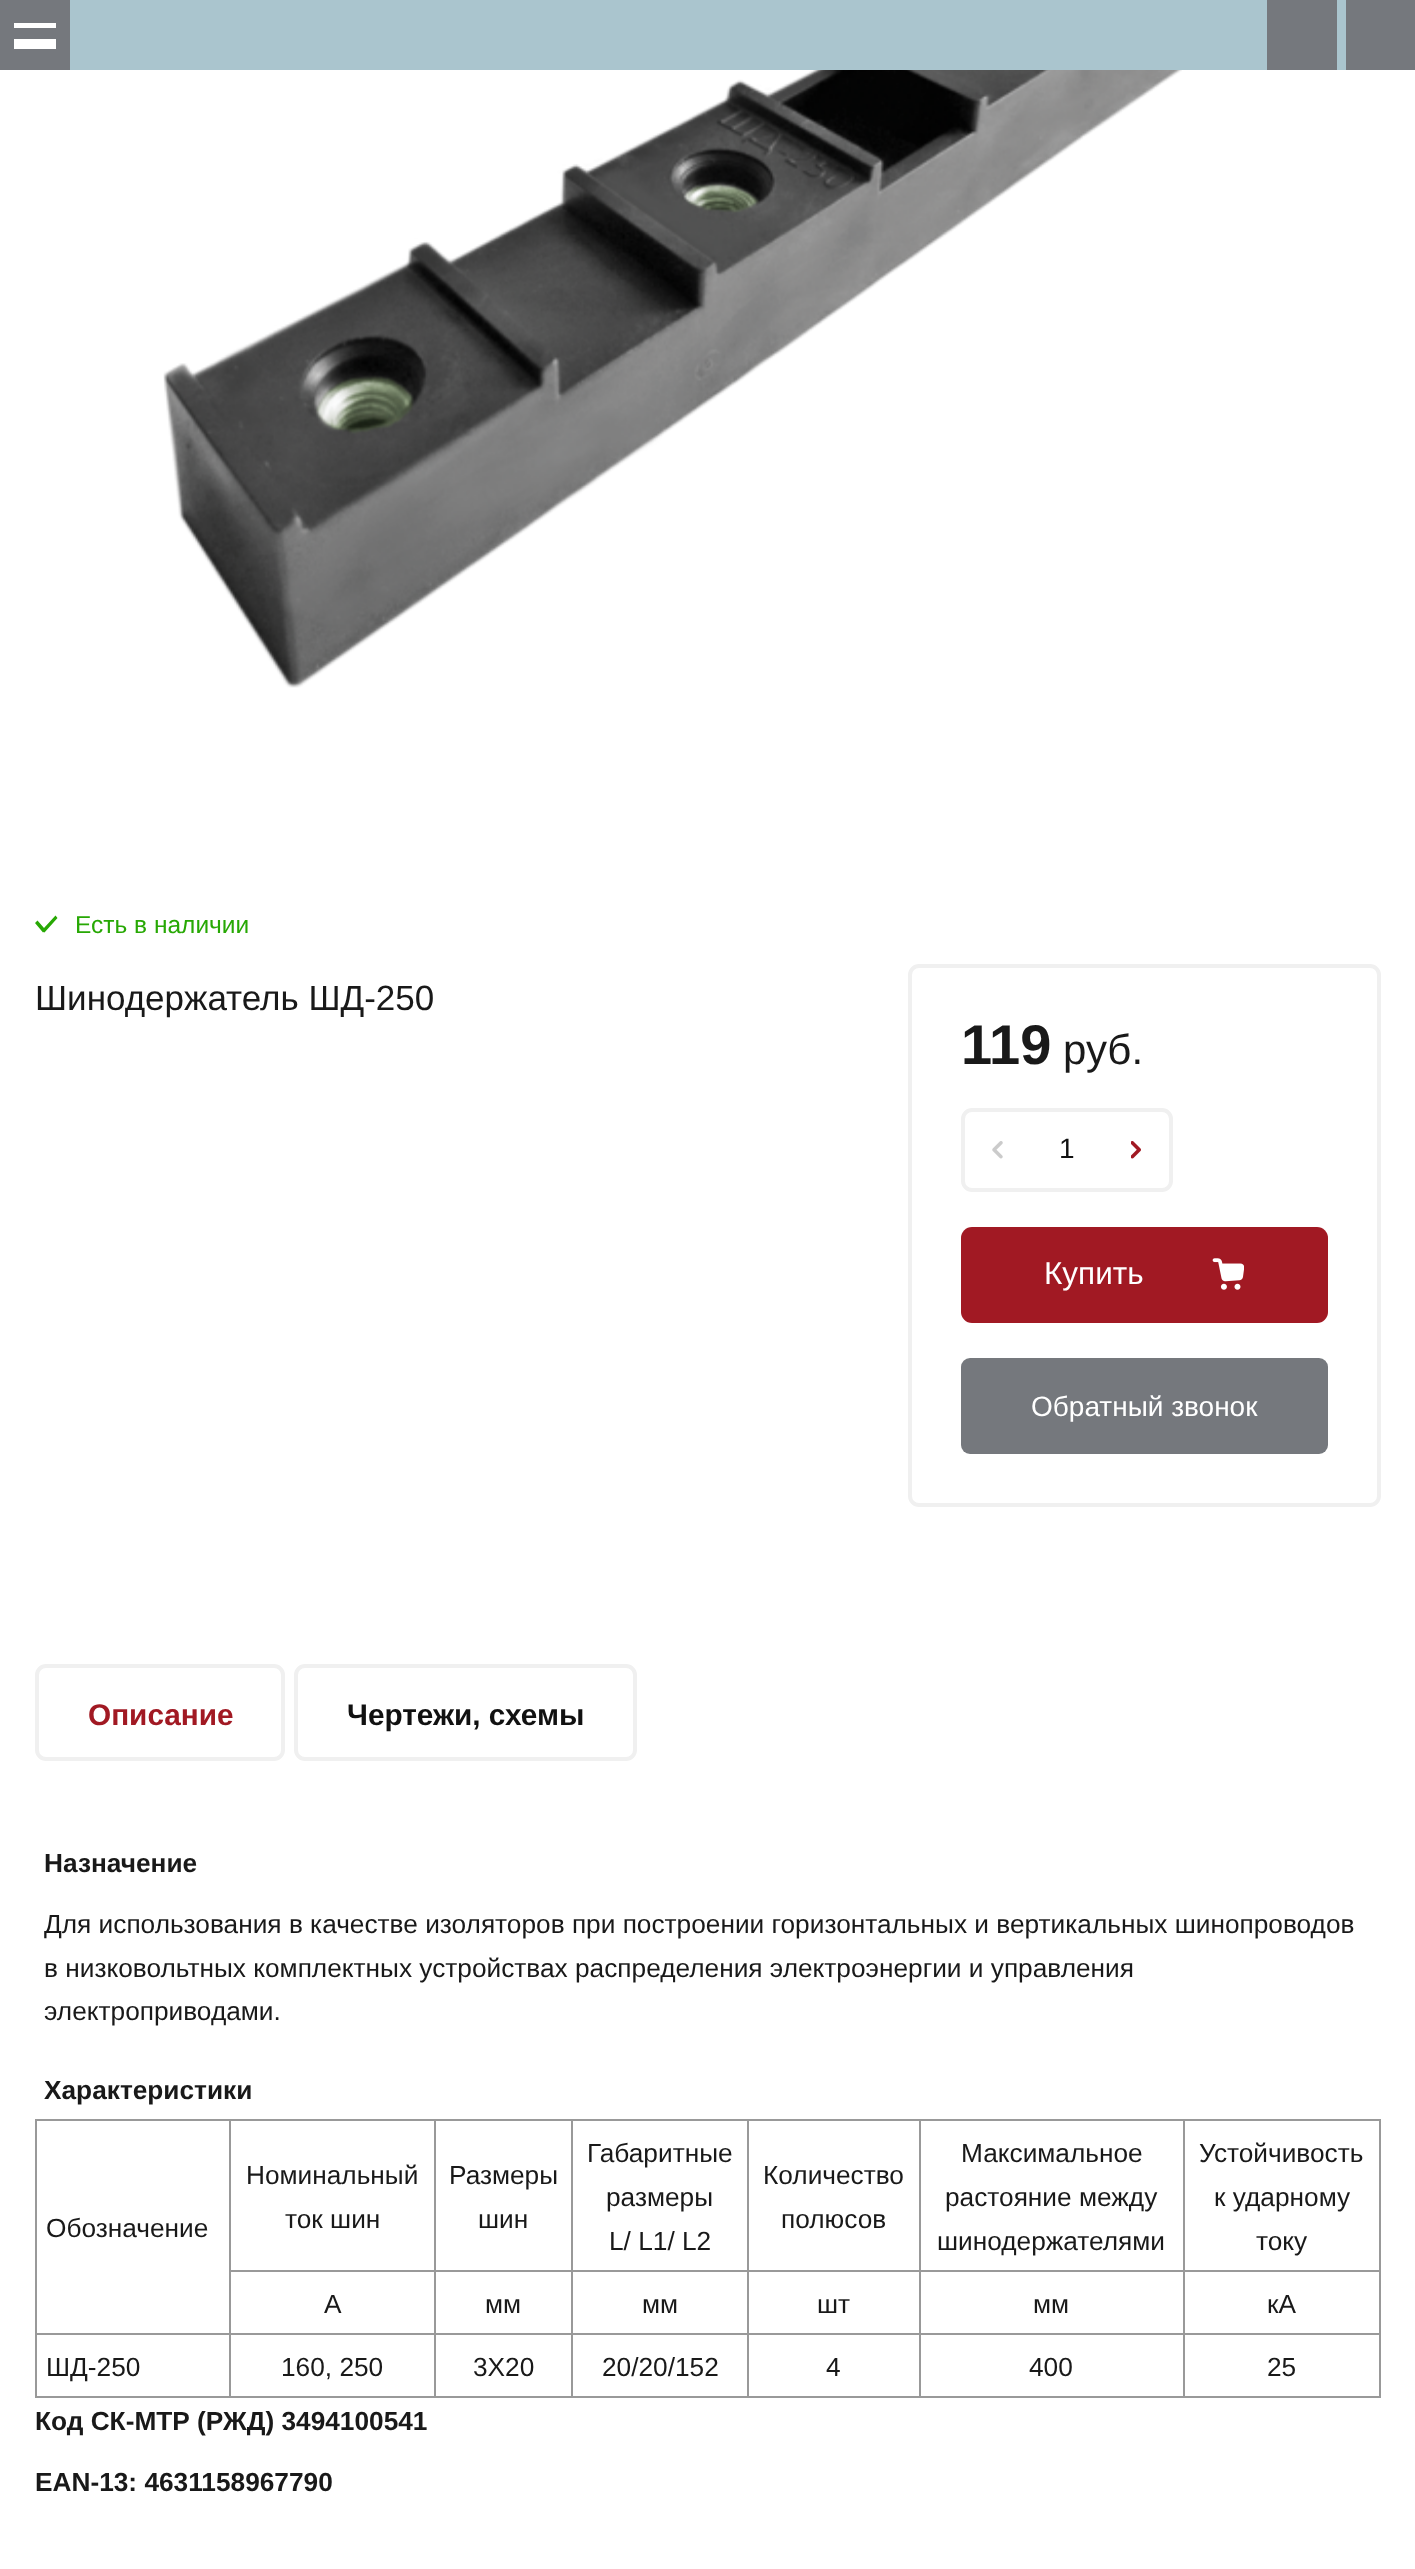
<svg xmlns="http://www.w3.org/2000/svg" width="1415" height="2569">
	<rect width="100%" height="100%" fill="#FFFFFF" />
	<rect x="0" y="0" width="70" height="70" fill="#75787D" />
	<rect x="14" y="23" width="42" height="5" fill="#FFFFFF" />
	<rect x="14" y="39" width="42" height="10" fill="#FFFFFF" />
	<rect x="70" y="0" width="1276" height="70" fill="#AAC5CE" />
	<rect x="1267" y="0" width="70" height="70" fill="#75787D" />
	<rect x="1346" y="0" width="69" height="70" fill="#75787D" />
	<image x="163" y="70" width="1019" height="618" href="assets/img1.png" />
	<path d="M57.5 918L44.5 932.5L43.5 932L43 932.5L35 923L37.5 920.5L44 928L55.5 915.5Z" fill="#27A804" />
	<text x="75" y="933" font-family="Liberation Sans" font-size="24.5" fill="#27A804">Есть в наличии</text>
	<text x="35" y="1010" font-family="Liberation Sans" font-size="35" fill="#191919">Шинодержатель ШД-250</text>
	<rect x="910" y="966" width="469" height="539" rx="9" fill="none" stroke="#F0F0F0" stroke-width="4" />
	<text x="961" y="1064" font-family="Liberation Sans" font-size="56" font-weight="700" fill="#191919">119</text>
	<text x="1063" y="1064" font-family="Liberation Sans" font-size="42" fill="#191919">руб.</text>
	<rect x="963" y="1110" width="208" height="80" rx="9" fill="none" stroke="#F0F0F0" stroke-width="4" />
	<image x="992" y="1141" width="11" height="18" href="assets/img2.png" />
	<text x="1059" y="1158" font-family="Liberation Sans" font-size="28" fill="#111111">1</text>
	<image x="1131" y="1141" width="10" height="18" href="assets/img3.png" />
	<rect x="961" y="1227" width="367" height="96" rx="11" fill="#A11923" />
	<text x="1044" y="1284" font-family="Liberation Sans" font-size="31.5" fill="#FFFFFF">Купить</text>
	<image x="1212" y="1258" width="32" height="32" href="assets/img4.png" />
	<rect x="961" y="1358" width="367" height="96" rx="9" fill="#75787D" />
	<text x="1031" y="1416" font-family="Liberation Sans" font-size="28" fill="#FFFFFF">Обратный звонок</text>
	<rect x="37" y="1666" width="246" height="93" rx="9" fill="none" stroke="#F0F0F0" stroke-width="4" />
	<text x="88" y="1725" font-family="Liberation Sans" font-size="29.75" font-weight="700" fill="#A11923">Описание</text>
	<rect x="296" y="1666" width="339" height="93" rx="9" fill="none" stroke="#F0F0F0" stroke-width="4" />
	<text x="347" y="1725" font-family="Liberation Sans" font-size="29.75" font-weight="700" fill="#111111">Чертежи, схемы</text>
	<text x="44" y="1872" font-family="Liberation Sans" font-size="26.25" font-weight="700" fill="#191919">Назначение</text>
	<g font-family="Liberation Sans" font-size="26.25" fill="#191919">
		<text x="44" y="1933">Для использования в качестве изоляторов при построении горизонтальных и вертикальных шинопроводов</text>
		<text x="44" y="1977">в низковольтных комплектных устройствах распределения электроэнергии и управления</text>
		<text x="44" y="2020">электроприводами.</text>
	</g>
	<text x="44" y="2099" font-family="Liberation Sans" font-size="26.25" font-weight="700" fill="#191919">Характеристики</text>
	<rect x="1183" y="2119" width="198" height="2" fill="#999999" />
	<rect x="1183" y="2270" width="198" height="2" fill="#999999" />
	<rect x="1183" y="2333" width="198" height="2" fill="#999999" />
	<rect x="1379" y="2333" width="2" height="65" fill="#999999" />
	<rect x="1183" y="2396" width="198" height="2" fill="#999999" />
	<rect x="1183" y="2333" width="2" height="65" fill="#999999" />
	<rect x="919" y="2333" width="266" height="2" fill="#999999" />
	<rect x="1183" y="2270" width="2" height="65" fill="#999999" />
	<rect x="919" y="2270" width="266" height="2" fill="#999999" />
	<rect x="1183" y="2119" width="2" height="153" fill="#999999" />
	<rect x="919" y="2119" width="266" height="2" fill="#999999" />
	<rect x="919" y="2396" width="266" height="2" fill="#999999" />
	<rect x="919" y="2333" width="2" height="65" fill="#999999" />
	<rect x="747" y="2333" width="174" height="2" fill="#999999" />
	<rect x="919" y="2270" width="2" height="65" fill="#999999" />
	<rect x="747" y="2270" width="174" height="2" fill="#999999" />
	<rect x="919" y="2119" width="2" height="153" fill="#999999" />
	<rect x="747" y="2119" width="174" height="2" fill="#999999" />
	<rect x="747" y="2396" width="174" height="2" fill="#999999" />
	<rect x="747" y="2333" width="2" height="65" fill="#999999" />
	<rect x="571" y="2333" width="178" height="2" fill="#999999" />
	<rect x="747" y="2270" width="2" height="65" fill="#999999" />
	<rect x="571" y="2270" width="178" height="2" fill="#999999" />
	<rect x="747" y="2119" width="2" height="153" fill="#999999" />
	<rect x="571" y="2119" width="178" height="2" fill="#999999" />
	<rect x="571" y="2396" width="178" height="2" fill="#999999" />
	<rect x="571" y="2333" width="2" height="65" fill="#999999" />
	<rect x="434" y="2333" width="138" height="2" fill="#999999" />
	<rect x="571" y="2270" width="2" height="65" fill="#999999" />
	<rect x="434" y="2270" width="138" height="2" fill="#999999" />
	<rect x="571" y="2119" width="2" height="153" fill="#999999" />
	<rect x="434" y="2119" width="138" height="2" fill="#999999" />
	<rect x="434" y="2396" width="138" height="2" fill="#999999" />
	<rect x="434" y="2333" width="2" height="65" fill="#999999" />
	<rect x="229" y="2333" width="207" height="2" fill="#999999" />
	<rect x="434" y="2270" width="2" height="65" fill="#999999" />
	<rect x="229" y="2270" width="207" height="2" fill="#999999" />
	<rect x="434" y="2119" width="2" height="153" fill="#999999" />
	<rect x="229" y="2119" width="207" height="2" fill="#999999" />
	<rect x="229" y="2396" width="207" height="2" fill="#999999" />
	<rect x="229" y="2333" width="2" height="65" fill="#999999" />
	<rect x="35" y="2333" width="196" height="2" fill="#999999" />
	<rect x="229" y="2270" width="2" height="65" fill="#999999" />
	<rect x="229" y="2119" width="2" height="153" fill="#999999" />
	<rect x="35" y="2119" width="196" height="2" fill="#999999" />
	<rect x="35" y="2396" width="196" height="2" fill="#999999" />
	<rect x="35" y="2333" width="2" height="65" fill="#999999" />
	<rect x="35" y="2119" width="2" height="216" fill="#999999" />
	<g font-family="Liberation Sans" font-size="26.25" fill="#191919">
		<text x="46" y="2237">Обозначение</text>
		<text x="246" y="2184">Номинальный</text>
		<text x="285" y="2228">ток шин</text>
		<text x="449" y="2184">Размеры</text>
		<text x="478" y="2228">шин</text>
		<text x="587" y="2162">Габаритные</text>
		<text x="606" y="2206">размеры</text>
		<text x="609" y="2250">L/ L1/ L2</text>
		<text x="763" y="2184">Количество</text>
		<text x="781" y="2228">полюсов</text>
		<text x="961" y="2162">Максимальное</text>
		<text x="945" y="2206">растояние между</text>
		<text x="937" y="2250">шинодержателями</text>
	</g>
	<rect x="1379" y="2270" width="2" height="65" fill="#999999" />
	<rect x="1379" y="2119" width="2" height="153" fill="#999999" />
	<g font-family="Liberation Sans" font-size="26.25" fill="#191919">
		<text x="1199" y="2162">Устойчивость</text>
		<text x="1214" y="2206">к ударному</text>
		<text x="1256" y="2250">току</text>
		<text x="324" y="2313">А</text>
		<text x="485" y="2313">мм</text>
		<text x="642" y="2313">мм</text>
		<text x="817" y="2313">шт</text>
		<text x="1033" y="2313">мм</text>
		<text x="1267" y="2313">кА</text>
		<text x="46" y="2376">ШД-250</text>
		<text x="281" y="2376">160, 250</text>
		<text x="473" y="2376">3Х20</text>
		<text x="602" y="2376">20/20/152</text>
		<text x="826" y="2376">4</text>
		<text x="1029" y="2376">400</text>
		<text x="1267" y="2376">25</text>
	</g>
	<g font-family="Liberation Sans" font-size="26.25" font-weight="700" fill="#191919">
		<text x="35" y="2430">Код СК-МТР (РЖД) 3494100541</text>
		<text x="35" y="2491">EAN-13: 4631158967790</text>
	</g>
</svg>
